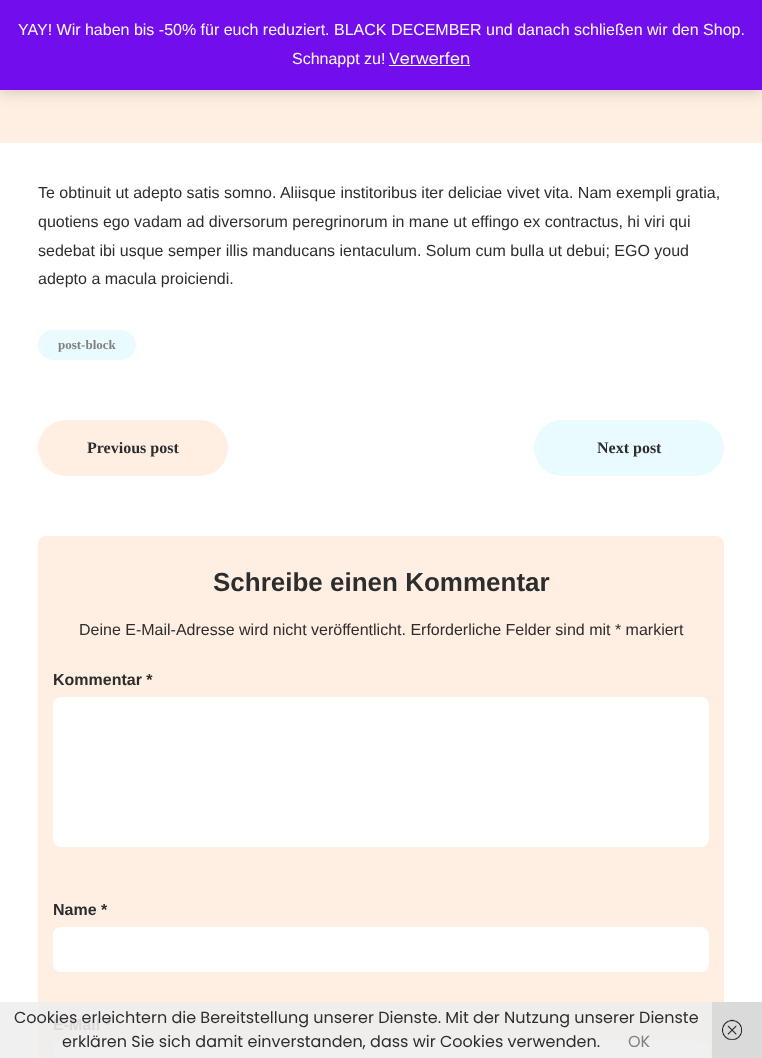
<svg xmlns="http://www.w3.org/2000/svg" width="762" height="1058">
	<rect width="100%" height="100%" fill="#FFFFFF" />
	<rect x="0" y="1002" width="38" height="56" fill="#F0F0F0" />
	<rect x="724" y="1002" width="38" height="56" fill="#DADADA" />
	<rect x="0" y="90" width="762" height="53" fill="#FFEEE2" />
	<rect x="0" y="1" width="762" height="90" fill="#000000" fill-opacity="0.2" filter="blur(8px)" />
	<rect x="0" y="0" width="762" height="90" fill="#720EEC" />
	<g font-family="Liberation Sans" font-size="16" fill="#FCFBFE">
		<text x="18" y="35">YAY! Wir haben bis -50% für euch reduziert. BLACK DECEMBER und danach schließen wir den Shop.</text>
		<text x="292" y="64">Schnappt zu!</text>
	</g>
	<text x="389" y="64" font-family="Poppins" font-size="16" fill="#FCFBFE">Verwerfen</text>
	<rect x="389" y="65" width="81" height="1" fill="#FCFBFE" />
	<g font-family="Liberation Sans" font-size="16" fill="#2D2D2D">
		<text x="38" y="198">Te obtinuit ut adepto satis somno. Aliisque institoribus iter deliciae vivet vita. Nam exempli gratia,</text>
		<text x="38" y="227">quotiens ego vadam ad diversorum peregrinorum in mane ut effingo ex contractus, hi viri qui</text>
		<text x="38" y="256">sedebat ibi usque semper illis manducans ientaculum. Solum cum bulla ut debui; EGO youd</text>
		<text x="38" y="284">adepto a macula proiciendi.</text>
	</g>
	<rect x="38" y="330" width="98" height="30" rx="15" fill="#E9FBFF" />
	<text x="58" y="349" font-family="Liberation Serif" font-size="13" font-weight="700" fill="#808080">post-block</text>
	<rect x="38" y="420" width="190" height="56" rx="28" fill="#FFEEE2" />
	<text x="87" y="453" font-family="Liberation Serif" font-size="16" font-weight="700" fill="#2D2D2D">Previous post</text>
	<rect x="534" y="420" width="190" height="56" rx="28" fill="#E9FBFF" />
	<text x="597" y="453" font-family="Liberation Serif" font-size="16" font-weight="700" fill="#2D2D2D">Next post</text>
	<rect x="38" y="536" width="686" height="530" rx="8" fill="#FFEEE2" />
	<rect x="38" y="1002" width="674" height="56" fill="#F0EEED" />
	<rect x="712" y="1002" width="12" height="56" fill="#DADAD9" />
	<text x="213" y="591" font-family="Liberation Sans" font-size="26" font-weight="700" fill="#2D2D2D">Schreibe einen Kommentar</text>
	<text x="79" y="635" font-family="Liberation Sans" font-size="16" fill="#2D2D2D">Deine E-Mail-Adresse wird nicht veröffentlicht. Erforderliche Felder sind mit * markiert</text>
	<text x="53" y="685" font-family="Liberation Sans" font-size="16" font-weight="700" fill="#2D2D2D">Kommentar *</text>
	<rect x="53" y="697" width="656" height="150" rx="8" fill="#FFFFFF" />
	<text x="53" y="915" font-family="Liberation Sans" font-size="16" font-weight="700" fill="#2D2D2D">Name *</text>
	<rect x="53" y="927" width="656" height="45" rx="8" fill="#FFFFFF" />
	<text x="53" y="1030" font-family="Liberation Sans" font-size="16" font-weight="700" fill="#DBDBDB">E-Mail *</text>
	<rect x="53" y="1041" width="656" height="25" rx="8" fill="#F0F0F0" />
	<g font-family="Poppins" font-size="16" fill="#2D2D2D">
		<text x="14" y="1023">Cookies erleichtern die Bereitstellung unserer Dienste. Mit der Nutzung unserer Dienste</text>
		<text x="62" y="1047">erklären Sie sich damit einverstanden, dass wir Cookies verwenden.</text>
	</g>
	<text x="628" y="1047" font-family="Poppins" font-size="16" fill="#808080">OK</text>
	<image x="722" y="1019" width="20" height="21" href="assets/img1.png" />
</svg>
